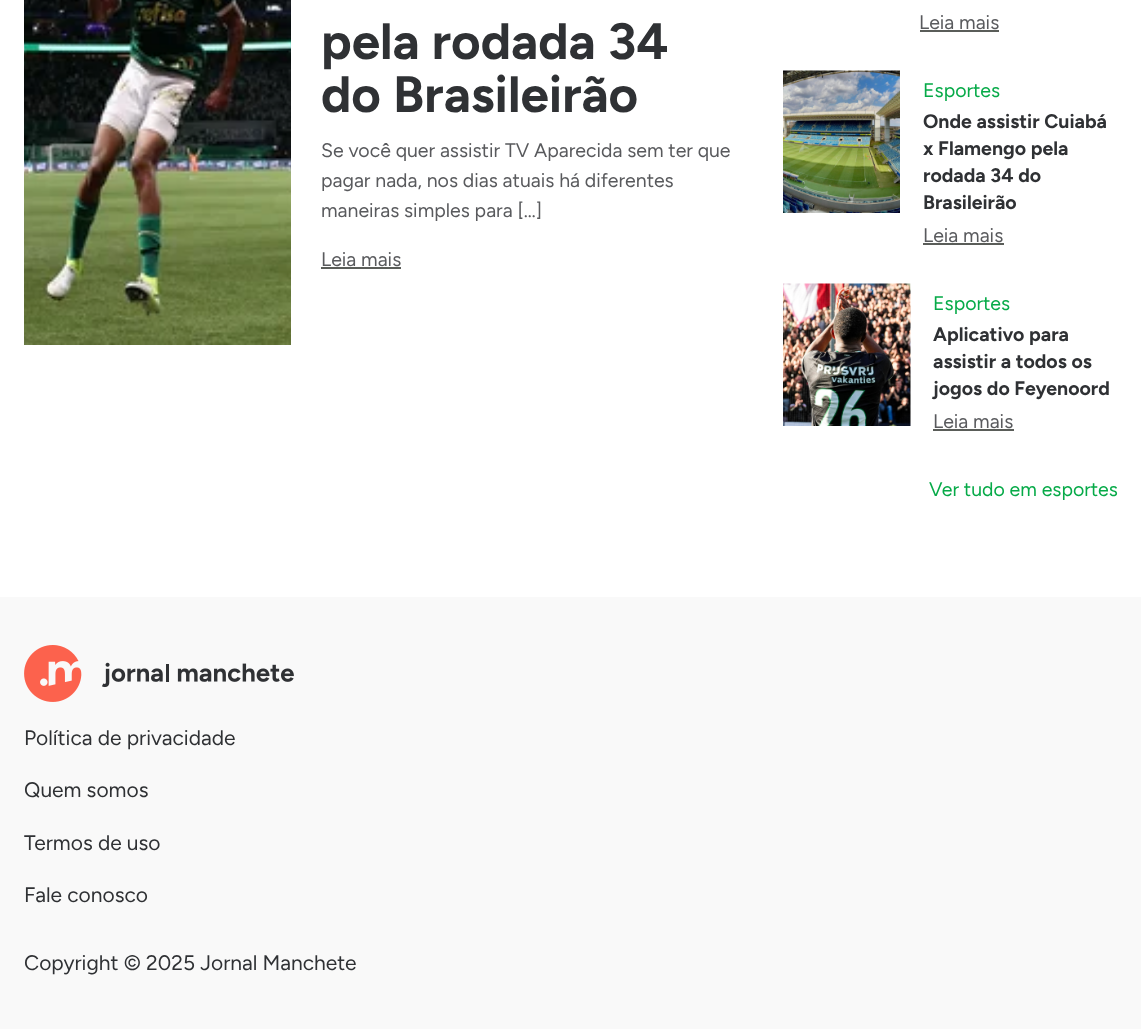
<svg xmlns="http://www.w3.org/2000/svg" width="1141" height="1029">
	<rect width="100%" height="100%" fill="#FFFFFF" />
	<image x="24" y="0" width="267" height="345" href="assets/img1.png" />
	<g font-family="Figtree" font-size="51" font-weight="700" fill="#2F3134">
		<text x="321" y="59">pela rodada 34</text>
		<text x="321" y="112">do Brasileirão</text>
	</g>
	<g font-family="Figtree" font-size="19.5" fill="#595A5D">
		<text x="321" y="157">Se você quer assistir TV Aparecida sem ter que</text>
		<text x="321" y="187">pagar nada, nos dias atuais há diferentes</text>
		<text x="321" y="217">maneiras simples para […]</text>
		<text x="321" y="266">Leia mais</text>
	</g>
	<rect x="321" y="267" width="80" height="2" fill="#5A5D59" />
	<text x="919" y="29" font-family="Figtree" font-size="19.5" fill="#595A5D">Leia mais</text>
	<rect x="920" y="30" width="79" height="2" fill="#5A5D59" />
	<image x="783" y="70" width="117" height="143" href="assets/img2.png" />
	<text x="923" y="97" font-family="Figtree" font-size="19.5" fill="#06AA48">Esportes</text>
	<g font-family="Figtree" font-size="19.5" font-weight="700" fill="#2F3134">
		<text x="923" y="128">Onde assistir Cuiabá</text>
		<text x="923" y="155">x Flamengo pela</text>
		<text x="923" y="182">rodada 34 do</text>
		<text x="923" y="209">Brasileirão</text>
	</g>
	<text x="923" y="242" font-family="Figtree" font-size="19.5" fill="#595A5D">Leia mais</text>
	<rect x="923" y="243" width="81" height="2" fill="#5A5D59" />
	<image x="783" y="283" width="128" height="143" href="assets/img3.png" />
	<text x="933" y="310" font-family="Figtree" font-size="19.5" fill="#06AA48">Esportes</text>
	<g font-family="Figtree" font-size="19.5" font-weight="700" fill="#2F3134">
		<text x="933" y="341">Aplicativo para</text>
		<text x="933" y="368">assistir a todos os</text>
		<text x="933" y="395">jogos do Feyenoord</text>
	</g>
	<text x="933" y="428" font-family="Figtree" font-size="19.5" fill="#595A5D">Leia mais</text>
	<rect x="933" y="429" width="81" height="2" fill="#5A5D59" />
	<text x="929" y="496" font-family="Figtree" font-size="19.5" fill="#06AA48">Ver tudo em esportes</text>
	<rect x="0" y="597" width="1141" height="432" fill="#F9F9F9" />
	<image x="24" y="645" width="270" height="57" href="assets/img4.png" />
	<g font-family="Figtree" font-size="21" fill="#2F3134">
		<text x="24" y="745">Política de privacidade</text>
		<text x="24" y="797">Quem somos</text>
		<text x="24" y="850">Termos de uso</text>
		<text x="24" y="902">Fale conosco</text>
		<text x="24" y="970">Copyright © 2025 Jornal Manchete</text>
	</g>
</svg>
